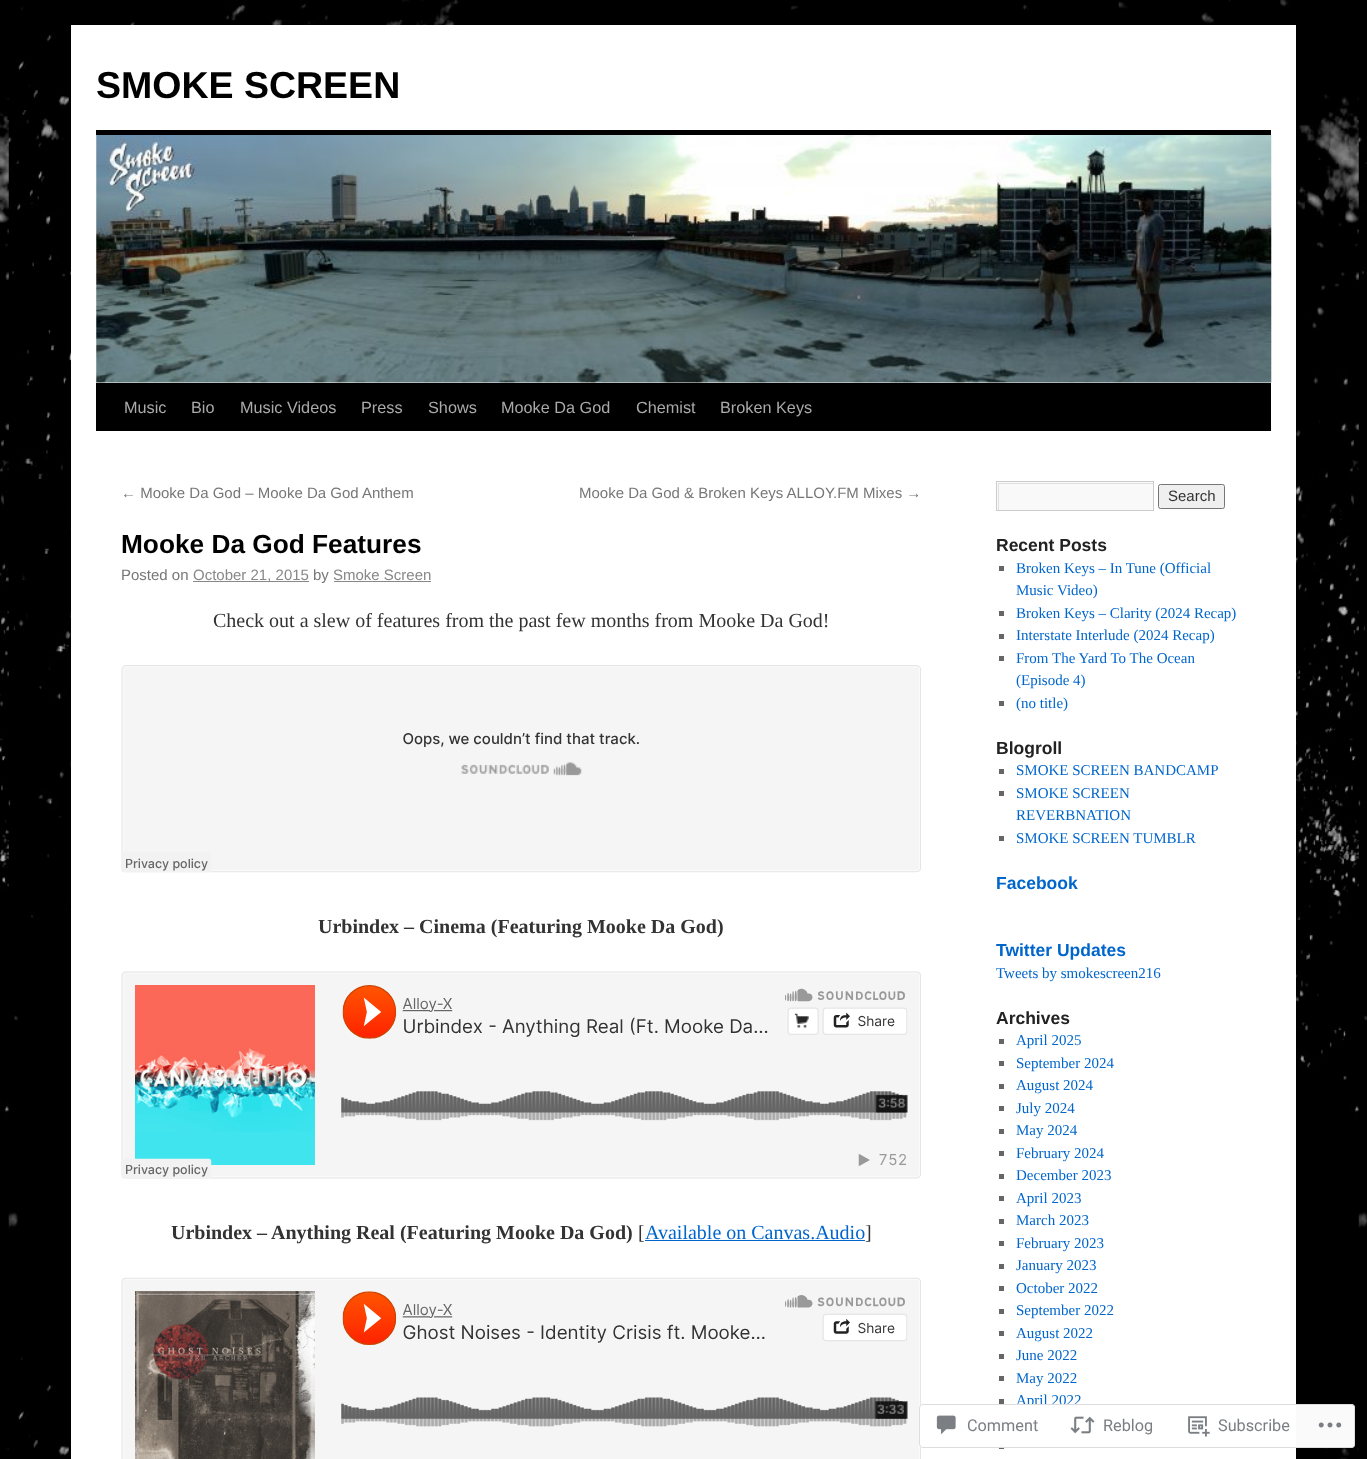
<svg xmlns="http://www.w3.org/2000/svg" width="1367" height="1459">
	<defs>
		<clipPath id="clip1"><rect x="998" y="483" width="155" height="27" /></clipPath>
	</defs>
	<rect width="100%" height="100%" fill="#FFFFFF" />
	<image x="0" y="0" width="1367" height="1459" href="assets/img1.png" />
	<rect x="71" y="25" width="1225" height="1434" fill="#FFFFFF" />
	<text x="96" y="98" font-family="Liberation Sans" font-size="37.5" font-weight="700" fill="#000000">SMOKE SCREEN</text>
	<rect x="96" y="130" width="1175" height="5" fill="#000000" />
	<rect x="96" y="383" width="1175" height="48" fill="#000000" />
	<image x="96" y="135" width="1176" height="248" href="assets/img2.png" />
	<g font-family="Liberation Sans" font-size="16.25" fill="#AAAAAA">
		<text x="124" y="413">Music</text>
		<text x="191" y="413">Bio</text>
		<text x="240" y="413">Music Videos</text>
		<text x="361" y="413">Press</text>
		<text x="428" y="413">Shows</text>
		<text x="501" y="413">Mooke Da God</text>
		<text x="636" y="413">Chemist</text>
		<text x="720" y="413">Broken Keys</text>
	</g>
	<g font-family="Liberation Sans" font-size="15" fill="#777777">
		<text x="121" y="498">← Mooke Da God – Mooke Da God Anthem</text>
		<text x="579" y="498">Mooke Da God &amp; Broken Keys ALLOY.FM Mixes →</text>
	</g>
	<text x="121" y="553" font-family="Liberation Sans" font-size="26.25" font-weight="700" fill="#000000">Mooke Da God Features</text>
	<text x="121" y="580" font-family="Liberation Sans" font-size="15" fill="#777777">Posted on</text>
	<rect x="193" y="581" width="116" height="1" fill="#888888" />
	<text x="193" y="580" font-family="Liberation Sans" font-size="15" fill="#888888">October 21, 2015</text>
	<text x="313" y="580" font-family="Liberation Sans" font-size="15" fill="#777777">by</text>
	<text x="333" y="580" font-family="Liberation Sans" font-size="15" fill="#888888">Smoke Screen</text>
	<rect x="334" y="581" width="97" height="1" fill="#888888" />
	<text x="213" y="627" font-family="Liberation Serif" font-size="20" fill="#333333">Check out a slew of features from the past few months from Mooke Da God!</text>
	<image x="121" y="665" width="800" height="208" href="assets/img3.png" />
	<text x="318" y="933" font-family="Liberation Serif" font-size="20" font-weight="700" fill="#333333">Urbindex – Cinema (Featuring Mooke Da God)</text>
	<image x="121" y="971" width="800" height="208" href="assets/img4.png" />
	<text x="171" y="1239" font-family="Liberation Serif" font-size="20" font-weight="700" fill="#333333">Urbindex – Anything Real (Featuring Mooke Da God)</text>
	<text x="638" y="1239" font-family="Liberation Serif" font-size="20" fill="#333333">[</text>
	<text x="645" y="1239" font-family="Liberation Serif" font-size="20" fill="#0066CC">Available on Canvas.Audio</text>
	<rect x="645" y="1240" width="220" height="1" fill="#0066CC" />
	<text x="865" y="1239" font-family="Liberation Serif" font-size="20" fill="#333333">]</text>
	<image x="121" y="1277" width="800" height="182" href="assets/img5.png" />
	<rect x="997" y="482" width="156" height="28" fill="#F9F9F9" />
	<g clip-path="url(#clip1)">
		<path d="M874 359H1276V634H874ZM999 484H1154V511H999Z" fill="#E0E0E0" fill-rule="evenodd" />
	</g>
	<rect x="996.5" y="481.5" width="157" height="29" fill="none" stroke="#CCCCCC" />
	<rect x="1158.5" y="484.5" width="66" height="24" rx="2" fill="#EFEFEF" stroke="#767676" />
	<text x="1168" y="501" font-family="Liberation Sans" font-size="15" fill="#333333">Search</text>
	<text x="996" y="551" font-family="Liberation Sans" font-size="17.5" font-weight="700" fill="#222222">Recent Posts</text>
	<rect x="999" y="566" width="5" height="5" fill="#666666" />
	<g font-family="Liberation Serif" font-size="15" fill="#0066CC">
		<text x="1016" y="573">Broken Keys – In Tune (Official</text>
		<text x="1016" y="595">Music Video)</text>
	</g>
	<rect x="999" y="611" width="5" height="5" fill="#666666" />
	<text x="1016" y="618" font-family="Liberation Serif" font-size="15" fill="#0066CC">Broken Keys – Clarity (2024 Recap)</text>
	<rect x="999" y="634" width="5" height="5" fill="#666666" />
	<text x="1016" y="640" font-family="Liberation Serif" font-size="15" fill="#0066CC">Interstate Interlude (2024 Recap)</text>
	<rect x="999" y="656" width="5" height="5" fill="#666666" />
	<g font-family="Liberation Serif" font-size="15" fill="#0066CC">
		<text x="1016" y="663">From The Yard To The Ocean</text>
		<text x="1016" y="685">(Episode 4)</text>
	</g>
	<rect x="999" y="701" width="5" height="5" fill="#666666" />
	<text x="1016" y="708" font-family="Liberation Serif" font-size="15" fill="#0066CC">(no title)</text>
	<text x="996" y="754" font-family="Liberation Sans" font-size="17.5" font-weight="700" fill="#222222">Blogroll</text>
	<rect x="999" y="769" width="5" height="5" fill="#666666" />
	<text x="1016" y="775" font-family="Liberation Serif" font-size="15" fill="#0066CC">SMOKE SCREEN BANDCAMP</text>
	<rect x="999" y="791" width="5" height="5" fill="#666666" />
	<g font-family="Liberation Serif" font-size="15" fill="#0066CC">
		<text x="1016" y="798">SMOKE SCREEN</text>
		<text x="1016" y="820">REVERBNATION</text>
	</g>
	<rect x="999" y="836" width="5" height="5" fill="#666666" />
	<text x="1016" y="843" font-family="Liberation Serif" font-size="15" fill="#0066CC">SMOKE SCREEN TUMBLR</text>
	<g font-family="Liberation Sans" font-size="17.5" font-weight="700" fill="#0066CC">
		<text x="996" y="889">Facebook</text>
		<text x="996" y="956">Twitter Updates</text>
	</g>
	<text x="996" y="978" font-family="Liberation Serif" font-size="15" fill="#0066CC">Tweets by smokescreen216</text>
	<text x="996" y="1024" font-family="Liberation Sans" font-size="17.5" font-weight="700" fill="#222222">Archives</text>
	<rect x="999" y="1039" width="5" height="5" fill="#666666" />
	<text x="1016" y="1045" font-family="Liberation Serif" font-size="15" fill="#0066CC">April 2025</text>
	<rect x="999" y="1061" width="5" height="5" fill="#666666" />
	<text x="1016" y="1068" font-family="Liberation Serif" font-size="15" fill="#0066CC">September 2024</text>
	<rect x="999" y="1084" width="5" height="5" fill="#666666" />
	<text x="1016" y="1090" font-family="Liberation Serif" font-size="15" fill="#0066CC">August 2024</text>
	<rect x="999" y="1106" width="5" height="5" fill="#666666" />
	<text x="1016" y="1113" font-family="Liberation Serif" font-size="15" fill="#0066CC">July 2024</text>
	<rect x="999" y="1129" width="5" height="5" fill="#666666" />
	<text x="1016" y="1135" font-family="Liberation Serif" font-size="15" fill="#0066CC">May 2024</text>
	<rect x="999" y="1151" width="5" height="5" fill="#666666" />
	<text x="1016" y="1158" font-family="Liberation Serif" font-size="15" fill="#0066CC">February 2024</text>
	<rect x="999" y="1174" width="5" height="5" fill="#666666" />
	<text x="1016" y="1180" font-family="Liberation Serif" font-size="15" fill="#0066CC">December 2023</text>
	<rect x="999" y="1196" width="5" height="5" fill="#666666" />
	<text x="1016" y="1203" font-family="Liberation Serif" font-size="15" fill="#0066CC">April 2023</text>
	<rect x="999" y="1219" width="5" height="5" fill="#666666" />
	<text x="1016" y="1225" font-family="Liberation Serif" font-size="15" fill="#0066CC">March 2023</text>
	<rect x="999" y="1241" width="5" height="5" fill="#666666" />
	<text x="1016" y="1248" font-family="Liberation Serif" font-size="15" fill="#0066CC">February 2023</text>
	<rect x="999" y="1264" width="5" height="5" fill="#666666" />
	<text x="1016" y="1270" font-family="Liberation Serif" font-size="15" fill="#0066CC">January 2023</text>
	<rect x="999" y="1286" width="5" height="5" fill="#666666" />
	<text x="1016" y="1293" font-family="Liberation Serif" font-size="15" fill="#0066CC">October 2022</text>
	<rect x="999" y="1309" width="5" height="5" fill="#666666" />
	<text x="1016" y="1315" font-family="Liberation Serif" font-size="15" fill="#0066CC">September 2022</text>
	<rect x="999" y="1331" width="5" height="5" fill="#666666" />
	<text x="1016" y="1338" font-family="Liberation Serif" font-size="15" fill="#0066CC">August 2022</text>
	<rect x="999" y="1354" width="5" height="5" fill="#666666" />
	<text x="1016" y="1360" font-family="Liberation Serif" font-size="15" fill="#0066CC">June 2022</text>
	<rect x="999" y="1376" width="5" height="5" fill="#666666" />
	<text x="1016" y="1383" font-family="Liberation Serif" font-size="15" fill="#0066CC">May 2022</text>
	<rect x="999" y="1399" width="5" height="5" fill="#666666" />
	<text x="1016" y="1405" font-family="Liberation Serif" font-size="15" fill="#0066CC">April 2022</text>
	<rect x="999" y="1421" width="5" height="5" fill="#666666" />
	<rect x="999" y="1444" width="5" height="5" fill="#666666" />
	<rect x="919" y="1404" width="436" height="44" rx="4" fill="#FFFFFF" fill-opacity="0.98" />
	<rect x="919.5" y="1404.5" width="435" height="43" rx="3.5" fill="none" stroke="#DCDCDE" stroke-opacity="0.98" />
	<image x="936" y="1415" width="20" height="20" href="assets/img6.png" />
	<text x="967" y="1431" font-family="Roboto" font-size="16.25" fill="#7B7F84">Comment</text>
	<image x="1070" y="1416" width="25" height="18" href="assets/img7.png" />
	<text x="1103" y="1431" font-family="Roboto" font-size="16.25" fill="#7B7F84">Reblog</text>
	<image x="1188" y="1416" width="22" height="21" href="assets/img8.png" />
	<text x="1218" y="1431" font-family="Roboto" font-size="16.25" fill="#7B7F84">Subscribe</text>
	<image x="1318" y="1422" width="24" height="6" href="assets/img9.png" />
</svg>
